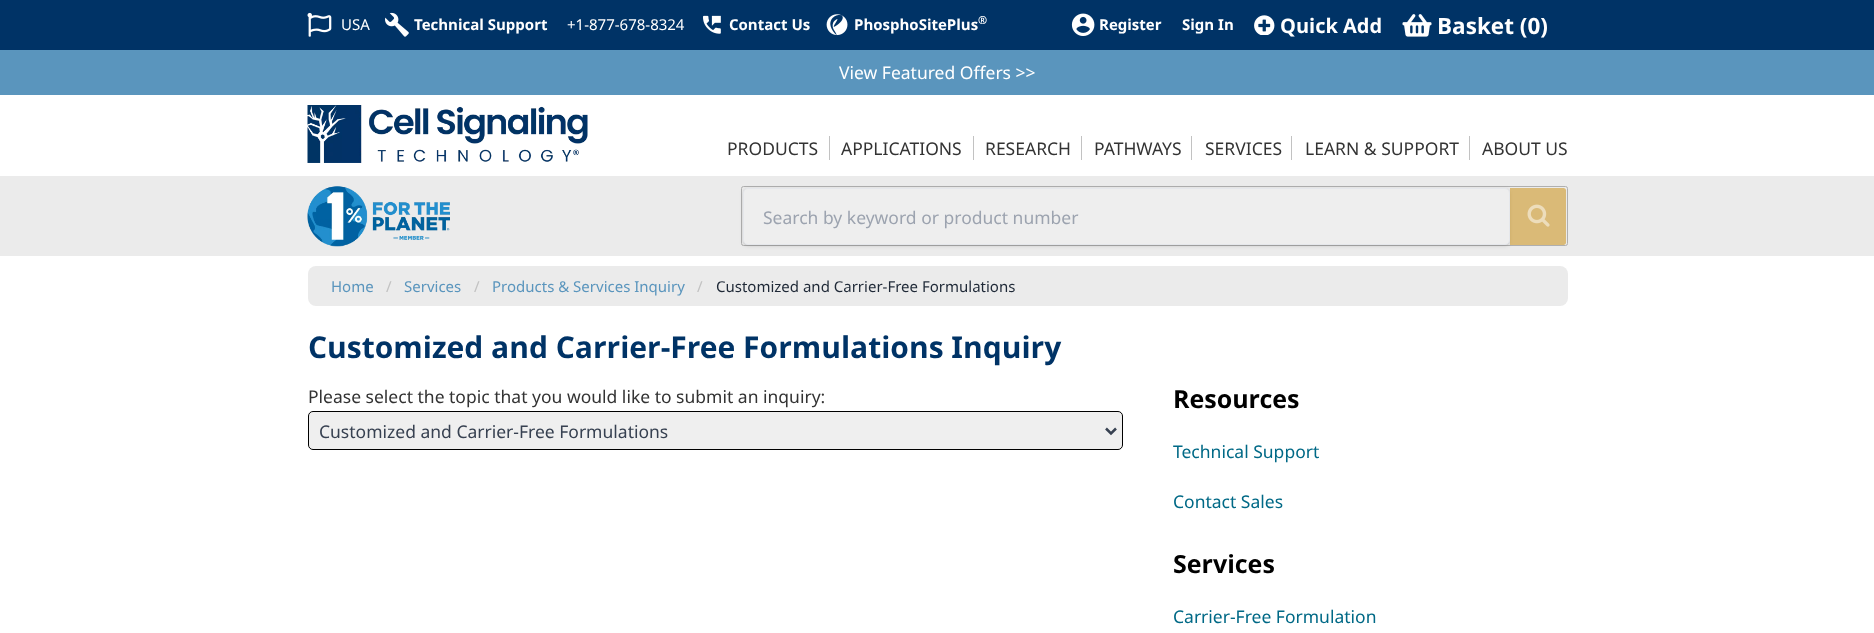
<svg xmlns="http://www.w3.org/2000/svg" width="1874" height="633">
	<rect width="100%" height="100%" fill="#FFFFFF" />
	<rect x="0" y="0" width="1874" height="50" fill="#003366" />
	<image x="307" y="12" width="25" height="25" href="assets/img1.png" />
	<text x="341" y="30" font-family="Noto Sans" font-size="15" fill="#FFFFFF">USA</text>
	<image x="385" y="12" width="24" height="25" href="assets/img2.png" />
	<text x="414" y="30" font-family="Noto Sans" font-size="15" font-weight="700" fill="#FFFFFF">Technical Support</text>
	<text x="567" y="30" font-family="Noto Sans" font-size="15" fill="#FFFFFF">+1-877-678-8324</text>
	<image x="703" y="15" width="18" height="19" href="assets/img3.png" />
	<text x="729" y="30" font-family="Noto Sans" font-size="15" font-weight="700" fill="#FFFFFF">Contact Us</text>
	<image x="826" y="14" width="22" height="22" href="assets/img4.png" />
	<text x="854" y="30" font-family="Noto Sans" font-size="15" font-weight="700" fill="#FFFFFF">PhosphoSitePlus</text>
	<text x="978" y="24" font-family="Noto Sans" font-size="11" font-weight="700" fill="#FFFFFF">®</text>
	<image x="1071" y="13" width="24" height="23" href="assets/img5.png" />
	<g font-family="Noto Sans" font-size="15" font-weight="700" fill="#FFFFFF">
		<text x="1099" y="30">Register</text>
		<text x="1182" y="30">Sign In</text>
	</g>
	<image x="1254" y="15" width="21" height="20" href="assets/img6.png" />
	<text x="1280" y="33" font-family="Noto Sans" font-size="20" font-weight="700" fill="#FFFFFF">Quick Add</text>
	<image x="1402" y="14" width="30" height="23" href="assets/img7.png" />
	<text x="1437" y="34" font-family="Noto Sans" font-size="22.5" font-weight="700" fill="#FFFFFF">Basket (0)</text>
	<rect x="0" y="50" width="1874" height="45" fill="#5A95BD" />
	<text x="839" y="79" font-family="Noto Sans" font-size="17.5" fill="#FFFFFF">View Featured Offers &gt;&gt;</text>
	<image x="307" y="105" width="281" height="58" href="assets/img8.png" />
	<text x="727" y="155" font-family="Noto Sans" font-size="17.5" fill="#333333">PRODUCTS</text>
	<rect x="829" y="136" width="1" height="24" fill="#C2C2C2" />
	<text x="841" y="155" font-family="Noto Sans" font-size="17.5" fill="#333333">APPLICATIONS</text>
	<rect x="973" y="136" width="1" height="24" fill="#C2C2C2" />
	<text x="985" y="155" font-family="Noto Sans" font-size="17.5" fill="#333333">RESEARCH</text>
	<rect x="1081" y="136" width="1" height="24" fill="#C2C2C2" />
	<text x="1094" y="155" font-family="Noto Sans" font-size="17.5" fill="#333333">PATHWAYS</text>
	<rect x="1191" y="136" width="1" height="24" fill="#C2C2C2" />
	<text x="1205" y="155" font-family="Noto Sans" font-size="17.5" fill="#333333">SERVICES</text>
	<rect x="1291" y="136" width="1" height="24" fill="#C2C2C2" />
	<text x="1305" y="155" font-family="Noto Sans" font-size="17.5" fill="#333333">LEARN &amp; SUPPORT</text>
	<rect x="1469" y="136" width="1" height="24" fill="#C2C2C2" />
	<text x="1482" y="155" font-family="Noto Sans" font-size="17.5" fill="#333333">ABOUT US</text>
	<rect x="0" y="176" width="1874" height="80" fill="#EBEBEB" />
	<image x="307" y="186" width="143" height="61" href="assets/img9.png" />
	<rect x="741.5" y="186.5" width="826" height="59" rx="2" fill="none" stroke="#AFAFAF" />
	<rect x="744" y="190" width="765" height="55" rx="4" fill="#000000" fill-opacity="0.1" filter="blur(1px)" />
	<rect x="743" y="189" width="767" height="57" rx="5" fill="#000000" fill-opacity="0.1" filter="blur(2px)" />
	<rect x="743.5" y="188.5" width="766" height="56" rx="4.5" fill="#EEEEEE" stroke="#E5E7EB" />
	<text x="763" y="224" font-family="Noto Sans" font-size="17.5" fill="#9CA3AF">Search by keyword or product number</text>
	<path d="M1510 188H1563.5C1565 188 1566 189 1566 190.5V242.5C1566 244 1565 245 1563.5 245H1510Z" fill="#CA8A04" fill-opacity="0.5" />
	<image x="1527" y="204" width="23" height="23" href="assets/img10.png" />
	<rect x="308" y="266" width="1260" height="40" rx="8" fill="#EBEBEB" />
	<text x="331" y="292" font-family="Noto Sans" font-size="15" fill="#5A95BD">Home</text>
	<text x="386" y="292" font-family="Noto Sans" font-size="15" fill="#C2C2C2">/</text>
	<text x="404" y="292" font-family="Noto Sans" font-size="15" fill="#5A95BD">Services</text>
	<text x="474" y="292" font-family="Noto Sans" font-size="15" fill="#C2C2C2">/</text>
	<text x="492" y="292" font-family="Noto Sans" font-size="15" fill="#5A95BD">Products &amp; Services Inquiry</text>
	<text x="697" y="292" font-family="Noto Sans" font-size="15" fill="#C2C2C2">/</text>
	<text x="716" y="292" font-family="Noto Sans" font-size="15" fill="#1F2937">Customized and Carrier-Free Formulations</text>
	<text x="308" y="358" font-family="Noto Sans" font-size="30" font-weight="700" fill="#003366">Customized and Carrier-Free Formulations Inquiry</text>
	<text x="308" y="403" font-family="Noto Sans" font-size="17.5" fill="#333333">Please select the topic that you would like to submit an inquiry:</text>
	<rect x="308.5" y="411.5" width="814" height="38" rx="4.5" fill="#EFEFEF" stroke="#000000" />
	<path d="M1106 428.5L1111 433.5L1116 428.5" fill="none" stroke="#374151" stroke-width="2.5" />
	<text x="319" y="438" font-family="Noto Sans" font-size="17.5" fill="#374151">Customized and Carrier-Free Formulations</text>
	<text x="1173" y="408" font-family="Noto Sans" font-size="25" font-weight="700" fill="#000000">Resources</text>
	<g font-family="Noto Sans" font-size="17.5" fill="#006986">
		<text x="1173" y="458">Technical Support</text>
		<text x="1173" y="508">Contact Sales</text>
	</g>
	<text x="1173" y="573" font-family="Noto Sans" font-size="25" font-weight="700" fill="#000000">Services</text>
	<text x="1173" y="623" font-family="Noto Sans" font-size="17.5" fill="#006986">Carrier-Free Formulation</text>
</svg>
